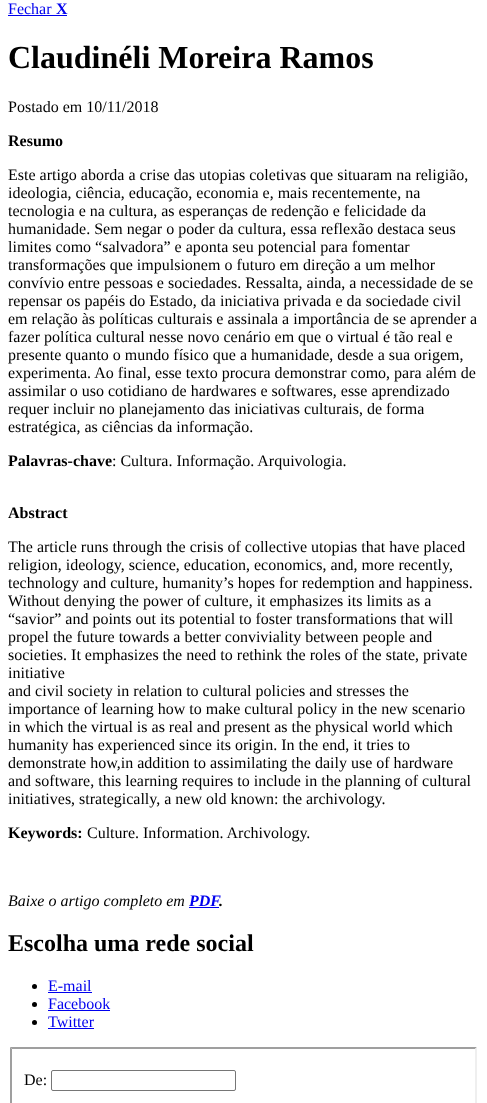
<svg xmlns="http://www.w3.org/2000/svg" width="487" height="1103">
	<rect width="100%" height="100%" fill="#FFFFFF" />
	<text x="8" y="14" font-family="Liberation Serif" font-size="16" fill="#0000EE">Fechar</text>
	<rect x="8" y="15" width="59" height="1" fill="#0000EE" />
	<text x="56" y="14" font-family="Liberation Serif" font-size="16" font-weight="700" fill="#0000EE">X</text>
	<text x="8" y="68" font-family="Liberation Serif" font-size="32" font-weight="700" fill="#000000">Claudinéli Moreira Ramos</text>
	<text x="8" y="112" font-family="Liberation Serif" font-size="16" fill="#000000">Postado em 10/11/2018</text>
	<text x="8" y="146" font-family="Liberation Serif" font-size="16" font-weight="700" fill="#000000">Resumo</text>
	<g font-family="Liberation Serif" font-size="16" fill="#000000">
		<text x="8" y="180">Este artigo aborda a crise das utopias coletivas que situaram na religião,</text>
		<text x="8" y="198">ideologia, ciência, educação, economia e, mais recentemente, na</text>
		<text x="8" y="216">tecnologia e na cultura, as esperanças de redenção e felicidade da</text>
		<text x="8" y="234">humanidade. Sem negar o poder da cultura, essa reflexão destaca seus</text>
		<text x="8" y="252">limites como “salvadora” e aponta seu potencial para fomentar</text>
		<text x="8" y="270">transformações que impulsionem o futuro em direção a um melhor</text>
		<text x="8" y="288">convívio entre pessoas e sociedades. Ressalta, ainda, a necessidade de se</text>
		<text x="8" y="306">repensar os papéis do Estado, da iniciativa privada e da sociedade civil</text>
		<text x="8" y="324">em relação às políticas culturais e assinala a importância de se aprender a</text>
		<text x="8" y="342">fazer política cultural nesse novo cenário em que o virtual é tão real e</text>
		<text x="8" y="360">presente quanto o mundo físico que a humanidade, desde a sua origem,</text>
		<text x="8" y="378">experimenta. Ao final, esse texto procura demonstrar como, para além de</text>
		<text x="8" y="396">assimilar o uso cotidiano de hardwares e softwares, esse aprendizado</text>
		<text x="8" y="414">requer incluir no planejamento das iniciativas culturais, de forma</text>
		<text x="8" y="432">estratégica, as ciências da informação.</text>
	</g>
	<text x="8" y="466" font-family="Liberation Serif" font-size="16" font-weight="700" fill="#000000">Palavras-chave</text>
	<text x="112" y="466" font-family="Liberation Serif" font-size="16" fill="#000000">: Cultura. Informação. Arquivologia.</text>
	<text x="8" y="518" font-family="Liberation Serif" font-size="16" font-weight="700" fill="#000000">Abstract</text>
	<g font-family="Liberation Serif" font-size="16" fill="#000000">
		<text x="8" y="552">The article runs through the crisis of collective utopias that have placed</text>
		<text x="8" y="570">religion, ideology, science, education, economics, and, more recently,</text>
		<text x="8" y="588">technology and culture, humanity’s hopes for redemption and happiness.</text>
		<text x="8" y="606">Without denying the power of culture, it emphasizes its limits as a</text>
		<text x="8" y="624">“savior” and points out its potential to foster transformations that will</text>
		<text x="8" y="642">propel the future towards a better conviviality between people and</text>
		<text x="8" y="660">societies. It emphasizes the need to rethink the roles of the state, private</text>
		<text x="8" y="678">initiative</text>
		<text x="8" y="696">and civil society in relation to cultural policies and stresses the</text>
		<text x="8" y="714">importance of learning how to make cultural policy in the new scenario</text>
		<text x="8" y="732">in which the virtual is as real and present as the physical world which</text>
		<text x="8" y="750">humanity has experienced since its origin. In the end, it tries to</text>
		<text x="8" y="768">demonstrate how,in addition to assimilating the daily use of hardware</text>
		<text x="8" y="786">and software, this learning requires to include in the planning of cultural</text>
		<text x="8" y="804">initiatives, strategically, a new old known: the archivology.</text>
	</g>
	<text x="8" y="838" font-family="Liberation Serif" font-size="16" font-weight="700" fill="#000000">Keywords:</text>
	<text x="87" y="838" font-family="Liberation Serif" font-size="16" fill="#000000">Culture. Information. Archivology.</text>
	<text x="8" y="906" font-family="Liberation Serif" font-size="16" font-style="italic" fill="#000000">Baixe o artigo completo em</text>
	<text x="189" y="906" font-family="Liberation Serif" font-size="16" font-weight="700" font-style="italic" fill="#0000EE">PDF</text>
	<text x="219" y="906" font-family="Liberation Serif" font-size="16" font-weight="700" font-style="italic" fill="#000000">.</text>
	<rect x="189" y="907" width="30" height="1" fill="#0000EE" />
	<text x="8" y="951" font-family="Liberation Serif" font-size="24" font-weight="700" fill="#000000">Escolha uma rede social</text>
	<circle cx="34.5" cy="986.5" r="2.5" fill="#000000" />
	<text x="48" y="991" font-family="Liberation Serif" font-size="16" fill="#0000EE">E-mail</text>
	<rect x="48" y="992" width="44" height="1" fill="#0000EE" />
	<circle cx="34.5" cy="1004.5" r="2.5" fill="#000000" />
	<text x="48" y="1009" font-family="Liberation Serif" font-size="16" fill="#0000EE">Facebook</text>
	<rect x="48" y="1010" width="62" height="1" fill="#0000EE" />
	<circle cx="34.5" cy="1022.5" r="2.5" fill="#000000" />
	<text x="48" y="1027" font-family="Liberation Serif" font-size="16" fill="#0000EE">Twitter</text>
	<rect x="48" y="1028" width="46" height="1" fill="#0000EE" />
	<path d="M10 1047H477L475 1049H12Z" fill="#9F9F9F" />
	<path d="M477 1047V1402L475 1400V1049Z" fill="#EFEFEF" />
	<path d="M10 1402V1047L12 1049V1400Z" fill="#9F9F9F" />
	<text x="24" y="1085" font-family="Liberation Serif" font-size="16" fill="#000000">De:</text>
	<rect x="51.5" y="1070.5" width="184" height="20" rx="1.5" fill="none" stroke="#767676" />
</svg>
